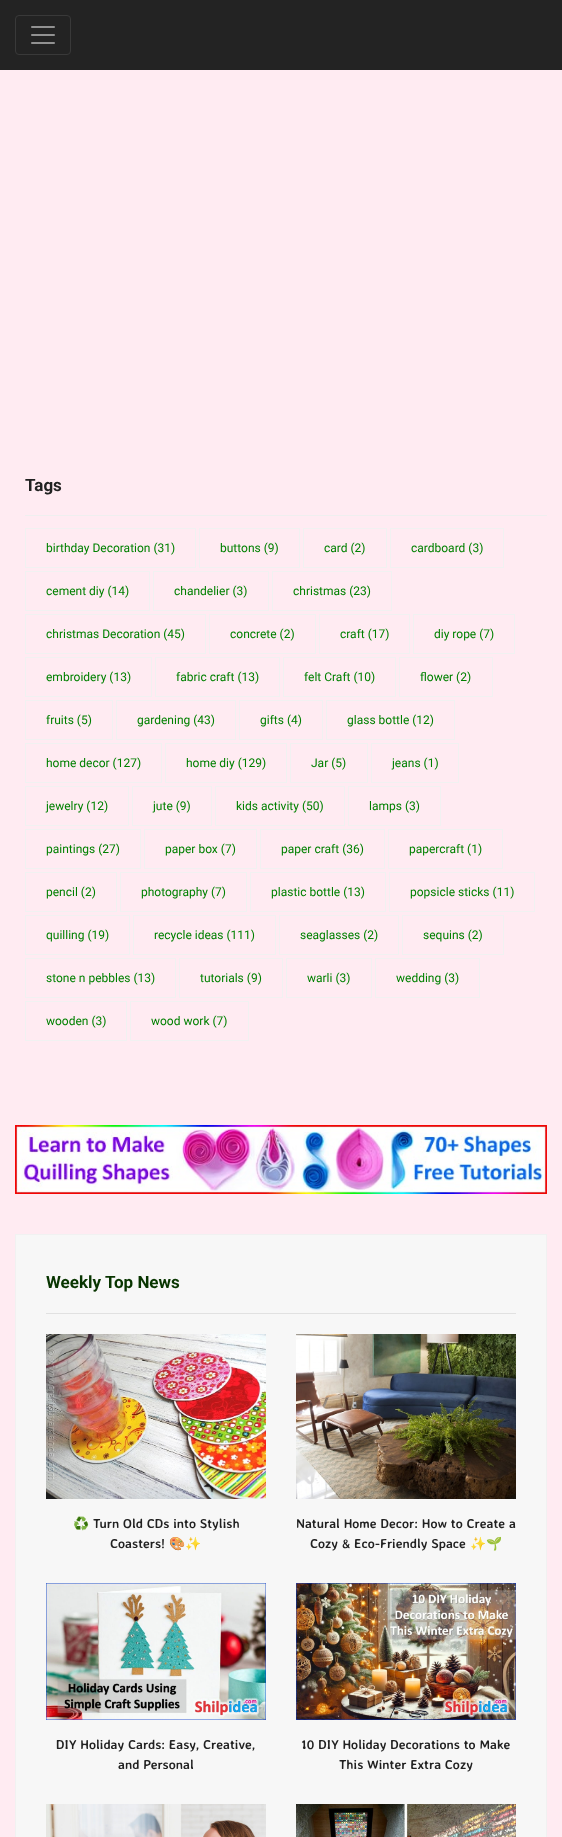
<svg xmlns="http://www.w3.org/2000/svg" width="562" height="1837">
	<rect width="100%" height="100%" fill="#FFEBF2" />
	<rect x="0" y="0" width="562" height="70" fill="#232323" />
	<rect x="15.5" y="15.5" width="55" height="39" rx="3.5" fill="none" stroke="#393939" />
	<image x="31" y="26" width="24" height="18" href="assets/img1.png" />
	<rect x="25" y="515" width="522" height="1" fill="#EFEFEF" />
	<text x="25" y="491" font-family="Roboto" font-size="17" font-weight="700" fill="#212121">Tags</text>
	<rect x="25.5" y="528.5" width="170" height="39" fill="none" stroke="#F1F1F1" />
	<text x="46" y="552" font-family="Roboto" font-size="12" fill="#008000">birthday Decoration (31)</text>
	<rect x="199.5" y="528.5" width="100" height="39" fill="none" stroke="#F1F1F1" />
	<text x="220" y="552" font-family="Roboto" font-size="12" fill="#008000">buttons (9)</text>
	<rect x="303.5" y="528.5" width="83" height="39" fill="none" stroke="#F1F1F1" />
	<text x="324" y="552" font-family="Roboto" font-size="12" fill="#008000">card (2)</text>
	<rect x="390.5" y="528.5" width="113" height="39" fill="none" stroke="#F1F1F1" />
	<text x="411" y="552" font-family="Roboto" font-size="12" fill="#008000">cardboard (3)</text>
	<rect x="25.5" y="571.5" width="124" height="39" fill="none" stroke="#F1F1F1" />
	<text x="46" y="595" font-family="Roboto" font-size="12" fill="#008000">cement diy (14)</text>
	<rect x="153.5" y="571.5" width="115" height="39" fill="none" stroke="#F1F1F1" />
	<text x="174" y="595" font-family="Roboto" font-size="12" fill="#008000">chandelier (3)</text>
	<rect x="272.5" y="571.5" width="119" height="39" fill="none" stroke="#F1F1F1" />
	<text x="293" y="595" font-family="Roboto" font-size="12" fill="#008000">christmas (23)</text>
	<rect x="25.5" y="614.5" width="180" height="39" fill="none" stroke="#F1F1F1" />
	<text x="46" y="638" font-family="Roboto" font-size="12" fill="#008000">christmas Decoration (45)</text>
	<rect x="209.5" y="614.5" width="106" height="39" fill="none" stroke="#F1F1F1" />
	<text x="230" y="638" font-family="Roboto" font-size="12" fill="#008000">concrete (2)</text>
	<rect x="319.5" y="614.5" width="90" height="39" fill="none" stroke="#F1F1F1" />
	<text x="340" y="638" font-family="Roboto" font-size="12" fill="#008000">craft (17)</text>
	<rect x="413.5" y="614.5" width="101" height="39" fill="none" stroke="#F1F1F1" />
	<text x="434" y="638" font-family="Roboto" font-size="12" fill="#008000">diy rope (7)</text>
	<rect x="25.5" y="657.5" width="126" height="39" fill="none" stroke="#F1F1F1" />
	<text x="46" y="681" font-family="Roboto" font-size="12" fill="#008000">embroidery (13)</text>
	<rect x="155.5" y="657.5" width="124" height="39" fill="none" stroke="#F1F1F1" />
	<text x="176" y="681" font-family="Roboto" font-size="12" fill="#008000">fabric craft (13)</text>
	<rect x="283.5" y="657.5" width="112" height="39" fill="none" stroke="#F1F1F1" />
	<text x="304" y="681" font-family="Roboto" font-size="12" fill="#008000">felt Craft (10)</text>
	<rect x="399.5" y="657.5" width="93" height="39" fill="none" stroke="#F1F1F1" />
	<text x="420" y="681" font-family="Roboto" font-size="12" fill="#008000">flower (2)</text>
	<rect x="25.5" y="700.5" width="87" height="39" fill="none" stroke="#F1F1F1" />
	<text x="46" y="724" font-family="Roboto" font-size="12" fill="#008000">fruits (5)</text>
	<rect x="116.5" y="700.5" width="119" height="39" fill="none" stroke="#F1F1F1" />
	<text x="137" y="724" font-family="Roboto" font-size="12" fill="#008000">gardening (43)</text>
	<rect x="239.5" y="700.5" width="83" height="39" fill="none" stroke="#F1F1F1" />
	<text x="260" y="724" font-family="Roboto" font-size="12" fill="#008000">gifts (4)</text>
	<rect x="326.5" y="700.5" width="128" height="39" fill="none" stroke="#F1F1F1" />
	<text x="347" y="724" font-family="Roboto" font-size="12" fill="#008000">glass bottle (12)</text>
	<rect x="25.5" y="743.5" width="136" height="39" fill="none" stroke="#F1F1F1" />
	<text x="46" y="767" font-family="Roboto" font-size="12" fill="#008000">home decor (127)</text>
	<rect x="165.5" y="743.5" width="121" height="39" fill="none" stroke="#F1F1F1" />
	<text x="186" y="767" font-family="Roboto" font-size="12" fill="#008000">home diy (129)</text>
	<rect x="290.5" y="743.5" width="77" height="39" fill="none" stroke="#F1F1F1" />
	<text x="311" y="767" font-family="Roboto" font-size="12" fill="#008000">Jar (5)</text>
	<rect x="371.5" y="743.5" width="87" height="39" fill="none" stroke="#F1F1F1" />
	<text x="392" y="767" font-family="Roboto" font-size="12" fill="#008000">jeans (1)</text>
	<rect x="25.5" y="786.5" width="103" height="39" fill="none" stroke="#F1F1F1" />
	<text x="46" y="810" font-family="Roboto" font-size="12" fill="#008000">jewelry (12)</text>
	<rect x="132.5" y="786.5" width="79" height="39" fill="none" stroke="#F1F1F1" />
	<text x="153" y="810" font-family="Roboto" font-size="12" fill="#008000">jute (9)</text>
	<rect x="215.5" y="786.5" width="129" height="39" fill="none" stroke="#F1F1F1" />
	<text x="236" y="810" font-family="Roboto" font-size="12" fill="#008000">kids activity (50)</text>
	<rect x="348.5" y="786.5" width="92" height="39" fill="none" stroke="#F1F1F1" />
	<text x="369" y="810" font-family="Roboto" font-size="12" fill="#008000">lamps (3)</text>
	<rect x="25.5" y="829.5" width="115" height="39" fill="none" stroke="#F1F1F1" />
	<text x="46" y="853" font-family="Roboto" font-size="12" fill="#008000">paintings (27)</text>
	<rect x="144.5" y="829.5" width="112" height="39" fill="none" stroke="#F1F1F1" />
	<text x="165" y="853" font-family="Roboto" font-size="12" fill="#008000">paper box (7)</text>
	<rect x="260.5" y="829.5" width="124" height="39" fill="none" stroke="#F1F1F1" />
	<text x="281" y="853" font-family="Roboto" font-size="12" fill="#008000">paper craft (36)</text>
	<rect x="388.5" y="829.5" width="114" height="39" fill="none" stroke="#F1F1F1" />
	<text x="409" y="853" font-family="Roboto" font-size="12" fill="#008000">papercraft (1)</text>
	<rect x="25.5" y="872.5" width="91" height="39" fill="none" stroke="#F1F1F1" />
	<text x="46" y="896" font-family="Roboto" font-size="12" fill="#008000">pencil (2)</text>
	<rect x="120.5" y="872.5" width="126" height="39" fill="none" stroke="#F1F1F1" />
	<text x="141" y="896" font-family="Roboto" font-size="12" fill="#008000">photography (7)</text>
	<rect x="250.5" y="872.5" width="135" height="39" fill="none" stroke="#F1F1F1" />
	<text x="271" y="896" font-family="Roboto" font-size="12" fill="#008000">plastic bottle (13)</text>
	<rect x="389.5" y="872.5" width="145" height="39" fill="none" stroke="#F1F1F1" />
	<text x="410" y="896" font-family="Roboto" font-size="12" fill="#008000">popsicle sticks (11)</text>
	<rect x="25.5" y="915.5" width="104" height="39" fill="none" stroke="#F1F1F1" />
	<text x="46" y="939" font-family="Roboto" font-size="12" fill="#008000">quilling (19)</text>
	<rect x="133.5" y="915.5" width="142" height="39" fill="none" stroke="#F1F1F1" />
	<text x="154" y="939" font-family="Roboto" font-size="12" fill="#008000">recycle ideas (111)</text>
	<rect x="279.5" y="915.5" width="119" height="39" fill="none" stroke="#F1F1F1" />
	<text x="300" y="939" font-family="Roboto" font-size="12" fill="#008000">seaglasses (2)</text>
	<rect x="402.5" y="915.5" width="101" height="39" fill="none" stroke="#F1F1F1" />
	<text x="423" y="939" font-family="Roboto" font-size="12" fill="#008000">sequins (2)</text>
	<rect x="25.5" y="958.5" width="150" height="39" fill="none" stroke="#F1F1F1" />
	<text x="46" y="982" font-family="Roboto" font-size="12" fill="#008000">stone n pebbles (13)</text>
	<rect x="179.5" y="958.5" width="103" height="39" fill="none" stroke="#F1F1F1" />
	<text x="200" y="982" font-family="Roboto" font-size="12" fill="#008000">tutorials (9)</text>
	<rect x="286.5" y="958.5" width="85" height="39" fill="none" stroke="#F1F1F1" />
	<text x="307" y="982" font-family="Roboto" font-size="12" fill="#008000">warli (3)</text>
	<rect x="375.5" y="958.5" width="104" height="39" fill="none" stroke="#F1F1F1" />
	<text x="396" y="982" font-family="Roboto" font-size="12" fill="#008000">wedding (3)</text>
	<rect x="25.5" y="1001.5" width="101" height="39" fill="none" stroke="#F1F1F1" />
	<text x="46" y="1025" font-family="Roboto" font-size="12" fill="#008000">wooden (3)</text>
	<rect x="130.5" y="1001.5" width="118" height="39" fill="none" stroke="#F1F1F1" />
	<text x="151" y="1025" font-family="Roboto" font-size="12" fill="#008000">wood work (7)</text>
	<image x="15" y="1125" width="532" height="69" href="assets/img2.png" />
	<rect x="15.5" y="1234.5" width="531" height="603" fill="#F7F7F7" stroke="#F1F1F1" />
	<rect x="46" y="1313" width="470" height="1" fill="#E1E1E1" />
	<text x="46" y="1288" font-family="Roboto" font-size="17" font-weight="700" fill="#083500">Weekly Top News</text>
	<image x="46" y="1334" width="220" height="165" href="assets/img3.png" />
	<text x="73" y="1528" font-family="Noto Color Emoji" font-size="13" fill="#212121">♻️</text>
	<g font-family="Averia Sans Libre" font-size="13" font-weight="700" fill="#212121">
		<text x="93" y="1528">Turn Old CDs into Stylish</text>
		<text x="110" y="1548">Coasters!</text>
	</g>
	<text x="169" y="1548" font-family="Noto Color Emoji" font-size="13" fill="#212121">🎨✨</text>
	<image x="296" y="1334" width="220" height="165" href="assets/img4.png" />
	<g font-family="Averia Sans Libre" font-size="13" font-weight="700" fill="#212121">
		<text x="296" y="1528">Natural Home Decor: How to Create a</text>
		<text x="310" y="1548">Cozy &amp; Eco-Friendly Space</text>
	</g>
	<text x="470" y="1548" font-family="Noto Color Emoji" font-size="13" fill="#212121">✨🌱</text>
	<image x="46" y="1583" width="220" height="137" href="assets/img5.png" />
	<g font-family="Averia Sans Libre" font-size="13" font-weight="700" fill="#212121">
		<text x="56" y="1749">DIY Holiday Cards: Easy, Creative,</text>
		<text x="118" y="1769">and Personal</text>
	</g>
	<image x="296" y="1583" width="220" height="137" href="assets/img6.png" />
	<g font-family="Averia Sans Libre" font-size="13" font-weight="700" fill="#212121">
		<text x="301" y="1749">10 DIY Holiday Decorations to Make</text>
		<text x="339" y="1769">This Winter Extra Cozy</text>
	</g>
	<image x="46" y="1804" width="220" height="33" href="assets/img7.png" />
	<image x="296" y="1804" width="220" height="33" href="assets/img8.png" />
</svg>
